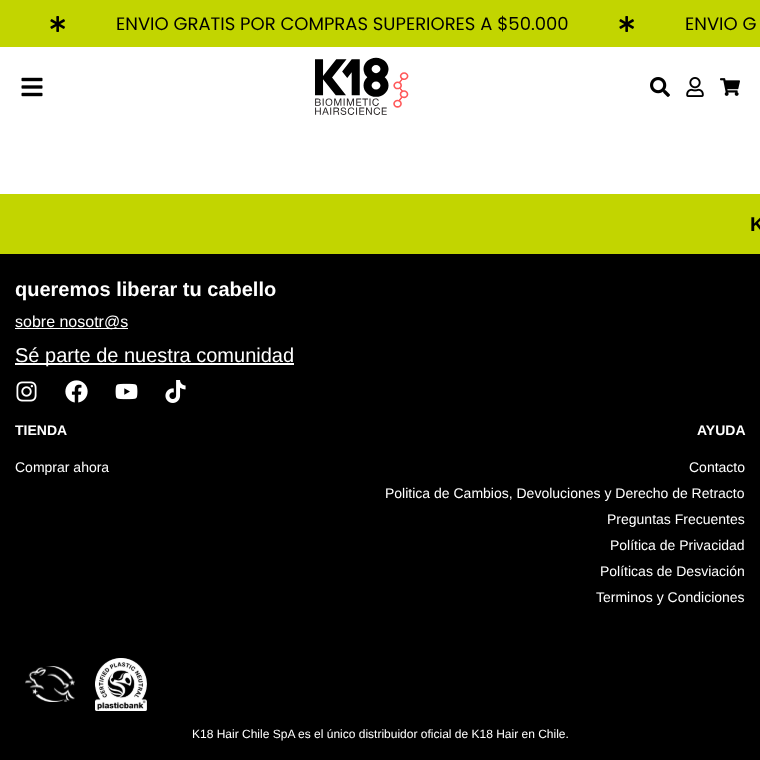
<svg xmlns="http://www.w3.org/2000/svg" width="760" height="760">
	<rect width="100%" height="100%" fill="#FFFFFF" />
	<rect x="0" y="0" width="760" height="47" fill="#C2D500" />
	<image x="50" y="16" width="15" height="16" href="assets/img1.png" />
	<text x="116" y="30" font-family="Poppins" font-size="18" fill="#000000">ENVIO GRATIS POR COMPRAS SUPERIORES A $50.000</text>
	<image x="619" y="16" width="15" height="16" href="assets/img1.png" />
	<text x="685" y="30" font-family="Poppins" font-size="18" fill="#000000">ENVIO G</text>
	<image x="21" y="77" width="22" height="20" href="assets/img2.png" />
	<image x="315" y="57" width="94" height="58" href="assets/img3.png" />
	<image x="650" y="77" width="20" height="20" href="assets/img4.png" />
	<image x="686" y="77" width="18" height="20" href="assets/img5.png" />
	<image x="720" y="78" width="20" height="18" href="assets/img6.png" />
	<rect x="0" y="194" width="760" height="60" fill="#C2D500" />
	<text x="750" y="231" font-family="Liberation Sans" font-size="20" font-weight="700" fill="#000000">K</text>
	<rect x="0" y="254" width="760" height="506" fill="#000000" />
	<text x="15" y="296" font-family="Liberation Sans" font-size="20" font-weight="700" fill="#FFFFFF">queremos liberar tu cabello</text>
	<rect x="15" y="328" width="113" height="1" fill="#FFFFFF" />
	<text x="15" y="327" font-family="Liberation Sans" font-size="16" fill="#FFFFFF">sobre nosotr@s</text>
	<rect x="15" y="363" width="279" height="2" fill="#FFFFFF" />
	<text x="15" y="362" font-family="Liberation Sans" font-size="20" fill="#FFFFFF">Sé parte de nuestra comunidad</text>
	<image x="16" y="381" width="21" height="21" href="assets/img7.png" />
	<image x="65" y="380" width="23" height="23" href="assets/img8.png" />
	<image x="115" y="383" width="23" height="17" href="assets/img9.png" />
	<image x="165" y="380" width="21" height="23" href="assets/img10.png" />
	<text x="15" y="435" font-family="Liberation Sans" font-size="14" font-weight="700" fill="#FFFFFF">TIENDA</text>
	<text x="15" y="472" font-family="Liberation Sans" font-size="14" fill="#FFFFFF">Comprar ahora</text>
	<text x="697" y="435" font-family="Liberation Sans" font-size="14" font-weight="700" fill="#FFFFFF">AYUDA</text>
	<g font-family="Liberation Sans" font-size="14" fill="#FFFFFF">
		<text x="689" y="472">Contacto</text>
		<text x="385" y="498">Politica de Cambios, Devoluciones y Derecho de Retracto</text>
		<text x="607" y="524">Preguntas Frecuentes</text>
		<text x="610" y="550">Política de Privacidad</text>
		<text x="600" y="576">Políticas de Desviación</text>
		<text x="596" y="602">Terminos y Condiciones</text>
	</g>
	<image x="25" y="666" width="50" height="36" href="assets/img11.png" />
	<image x="95" y="658" width="52" height="53" href="assets/img12.png" />
	<text x="192" y="738" font-family="Liberation Sans" font-size="12" fill="#FFFFFF">K18 Hair Chile SpA es el único distribuidor oficial de K18 Hair en Chile.</text>
</svg>
